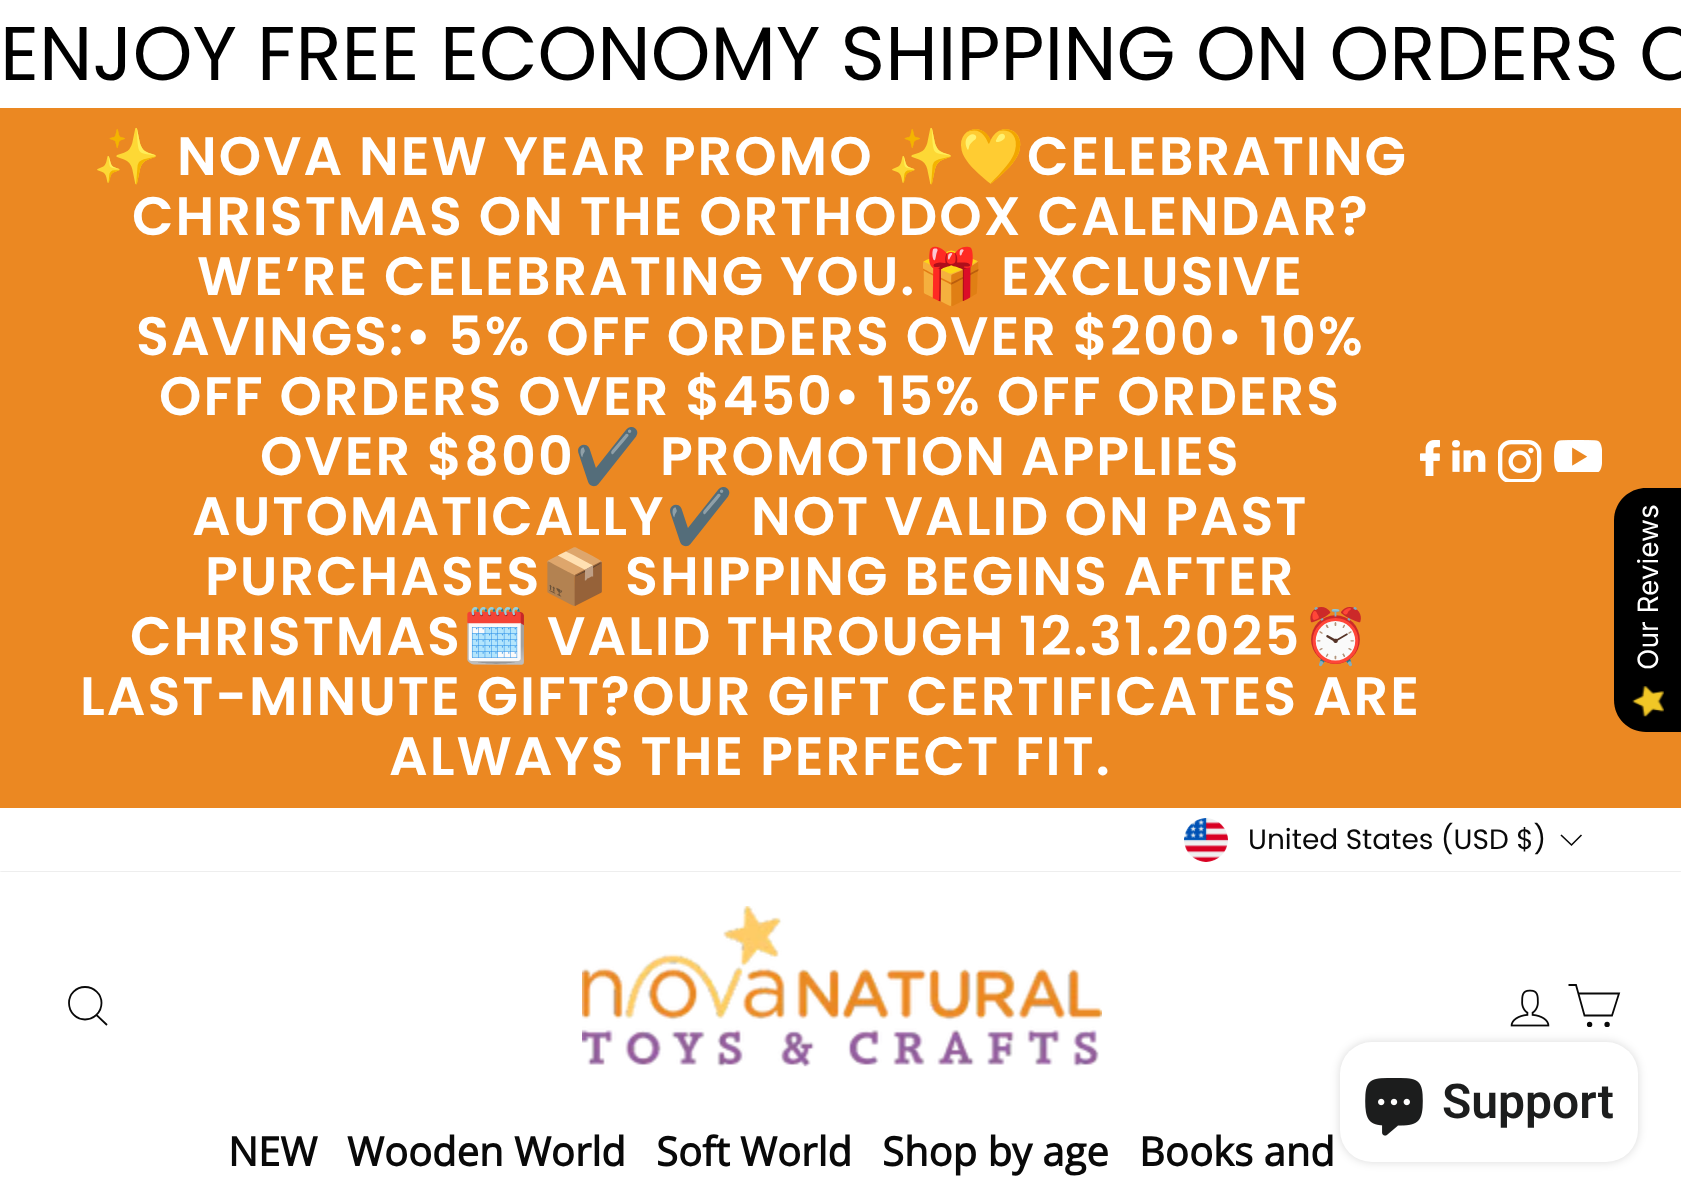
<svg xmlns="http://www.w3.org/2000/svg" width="1681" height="1203">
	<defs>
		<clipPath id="clip1"><rect x="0" y="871" width="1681" height="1" /></clipPath>
	</defs>
	<rect width="100%" height="100%" fill="#FFFFFF" />
	<text x="0" y="80" font-family="Poppins" font-size="76" fill="#000000">ENJOY FREE ECONOMY SHIPPING ON ORDERS O</text>
	<rect x="0" y="108" width="1681" height="700" fill="#EB8822" />
	<text x="93" y="175" font-family="Noto Color Emoji" font-size="54" font-weight="700" letter-spacing="2" fill="#FFFFFF">✨</text>
	<text x="177" y="175" font-family="Poppins" font-size="54" font-weight="600" letter-spacing="2" fill="#FFFFFF">NOVA NEW YEAR PROMO</text>
	<text x="888" y="175" font-family="Noto Color Emoji" font-size="54" font-weight="700" letter-spacing="2" fill="#FFFFFF">✨💛</text>
	<g font-family="Poppins" font-size="54" font-weight="600" letter-spacing="2" fill="#FFFFFF">
		<text x="1027" y="175">CELEBRATING</text>
		<text x="132" y="235">CHRISTMAS ON THE ORTHODOX CALENDAR?</text>
		<text x="197" y="295">WE’RE CELEBRATING YOU.</text>
	</g>
	<text x="917" y="295" font-family="Noto Color Emoji" font-size="54" font-weight="700" letter-spacing="2" fill="#FFFFFF">🎁</text>
	<g font-family="Poppins" font-size="54" font-weight="600" letter-spacing="2" fill="#FFFFFF">
		<text x="1001" y="295">EXCLUSIVE</text>
		<text x="136" y="355">SAVINGS:• 5% OFF ORDERS OVER $200• 10%</text>
		<text x="159" y="415">OFF ORDERS OVER $450• 15% OFF ORDERS</text>
		<text x="260" y="475">OVER $800</text>
	</g>
	<text x="574" y="475" font-family="Noto Color Emoji" font-size="54" font-weight="700" letter-spacing="2" fill="#FFFFFF">✔️</text>
	<g font-family="Poppins" font-size="54" font-weight="600" letter-spacing="2" fill="#FFFFFF">
		<text x="660" y="475" word-spacing="-1">PROMOTION APPLIES</text>
		<text x="192" y="535">AUTOMATICALLY</text>
	</g>
	<text x="666" y="535" font-family="Noto Color Emoji" font-size="54" font-weight="700" letter-spacing="2" fill="#FFFFFF">✔️</text>
	<g font-family="Poppins" font-size="54" font-weight="600" letter-spacing="2" fill="#FFFFFF">
		<text x="751" y="535" word-spacing="-0.5">NOT VALID ON PAST</text>
		<text x="205" y="595">PURCHASES</text>
	</g>
	<text x="541" y="595" font-family="Noto Color Emoji" font-size="54" font-weight="700" letter-spacing="2" fill="#FFFFFF">📦</text>
	<g font-family="Poppins" font-size="54" font-weight="600" letter-spacing="2" fill="#FFFFFF">
		<text x="625" y="595">SHIPPING BEGINS AFTER</text>
		<text x="130" y="655">CHRISTMAS</text>
	</g>
	<text x="462" y="655" font-family="Noto Color Emoji" font-size="54" font-weight="700" letter-spacing="2" fill="#FFFFFF">🗓️</text>
	<text x="547" y="655" word-spacing="-1" font-family="Poppins" font-size="54" font-weight="600" letter-spacing="2" fill="#FFFFFF">VALID THROUGH 12.31.2025</text>
	<text x="1302" y="655" font-family="Noto Color Emoji" font-size="54" font-weight="700" letter-spacing="2" fill="#FFFFFF">⏰</text>
	<g font-family="Poppins" font-size="54" font-weight="600" letter-spacing="2" fill="#FFFFFF">
		<text x="80" y="715">LAST-MINUTE GIFT?OUR GIFT CERTIFICATES ARE</text>
		<text x="389" y="775">ALWAYS THE PERFECT FIT.</text>
	</g>
	<image x="1420" y="440" width="20" height="36" href="assets/img1.png" />
	<image x="1452" y="440" width="34" height="32" href="assets/img2.png" />
	<image x="1498" y="440" width="44" height="42" href="assets/img3.png" />
	<image x="1554" y="440" width="48" height="32" href="assets/img4.png" />
	<image x="1184" y="818" width="44" height="44" href="assets/img5.png" />
	<text x="1248" y="849" font-family="Poppins" font-size="28" fill="#090909">United States (USD $)</text>
	<path d="M1561 835L1571.5 845L1581.5 835" fill="none" stroke="#090909" stroke-width="1.6" />
	<g clip-path="url(#clip1)">
		<rect x="0" y="872" width="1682" height="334" fill="#000000" fill-opacity="0.2" filter="blur(1px)" />
	</g>
	<path d="M101.5 1003C101.5 1012 94 1019.5 85 1019.5C76 1019.5 69 1012 69 1003C69 994 76 987 85 987C94 987 101.5 994 101.5 1003ZM107 1025L96.5 1015" fill="none" stroke="#090909" stroke-width="1.8" />
	<image x="582" y="906" width="520" height="161" href="assets/img6.png" />
	<image x="1510" y="989" width="40" height="38" href="assets/img7.png" />
	<path d="M1578 993.5H1619L1612 1015.5H1584.5L1576 985H1568.5" fill="none" stroke="#090909" stroke-width="1.8" />
	<circle cx="1589.6" cy="1024.4" r="1.8" fill="#090909" stroke="#090909" stroke-width="1.8" />
	<circle cx="1607.1" cy="1024.4" r="1.8" fill="#090909" stroke="#090909" stroke-width="1.8" />
	<g font-family="Open Sans" font-size="40" font-weight="700" fill="#090909">
		<text x="228" y="1166">NEW</text>
		<text x="347" y="1166">Wooden World</text>
		<text x="656" y="1166">Soft World</text>
		<text x="882" y="1166">Shop by age</text>
		<text x="1139" y="1166">Books and</text>
	</g>
	<path d="M1614 700V520C1614 503 1628 488 1646 488H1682V732H1646C1628 732 1614 718 1614 700Z" fill="#000000" />
	<text x="1658" y="670" transform="rotate(-90 1658 670)" font-family="Inter" font-size="28" fill="#FFFFFF">Our Reviews</text>
	<image x="1632" y="686" width="32" height="31" href="assets/img8.png" />
	<rect x="1340" y="1042" width="298" height="120" rx="32" fill="#000000" fill-opacity="0.15" filter="blur(5px)" />
	<rect x="1340" y="1042" width="298" height="120" rx="32" fill="#FFFFFF" />
	<image x="1365" y="1078" width="58" height="58" href="assets/img9.png" />
	<text x="1442" y="1118" font-family="Roboto" font-size="48" font-weight="600" fill="#1C1D1D">Support</text>
</svg>
